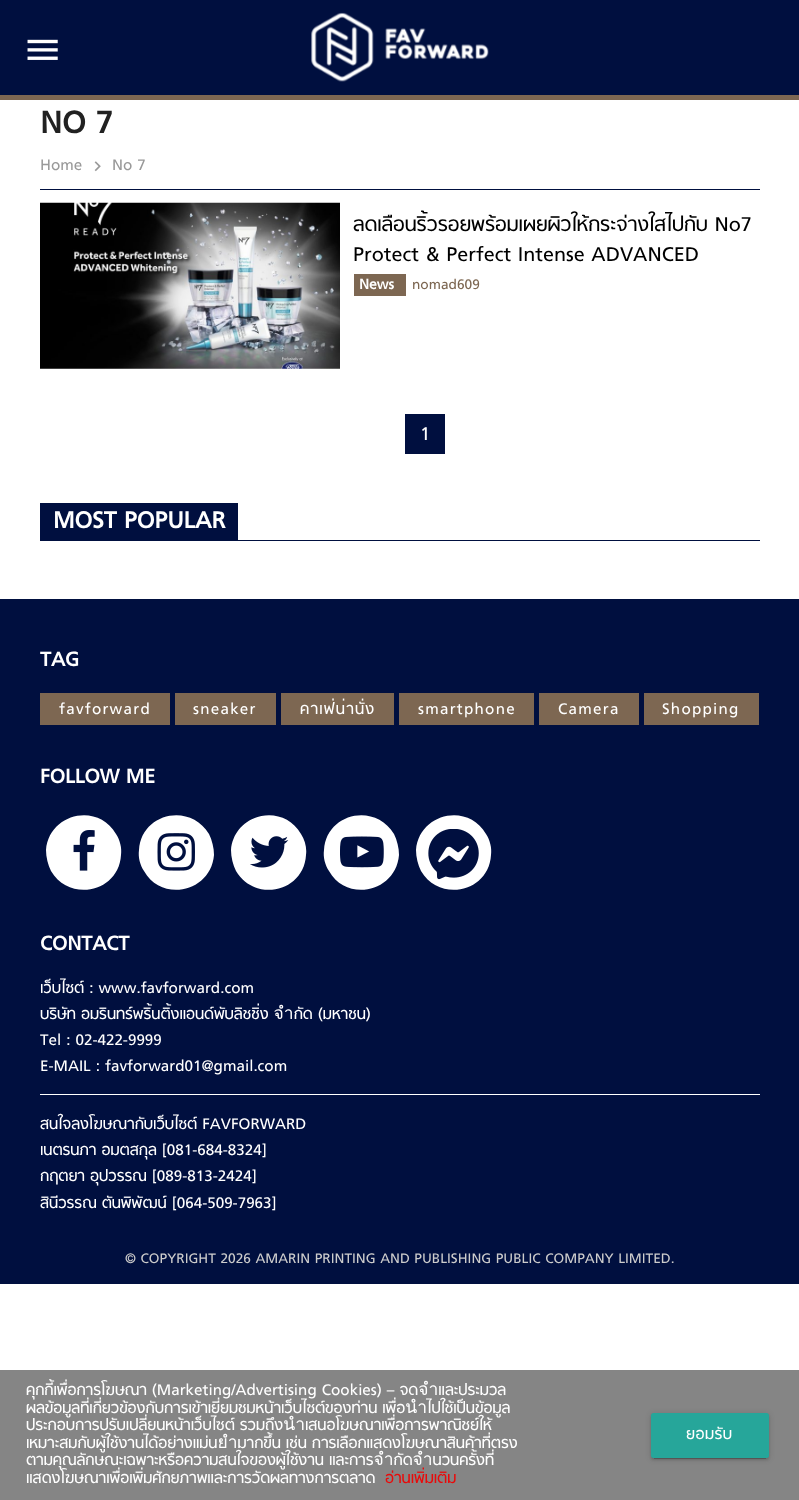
<svg xmlns="http://www.w3.org/2000/svg" width="799" height="1500">
	<rect width="100%" height="100%" fill="#FFFFFF" />
	<rect x="0" y="0" width="799" height="95" fill="#000F3F" />
	<rect x="0" y="95" width="799" height="5" fill="#7D6752" />
	<image x="27" y="39" width="31" height="21" href="assets/img1.png" />
	<image x="311" y="12" width="178" height="70" href="assets/img2.png" />
	<text x="40" y="133" font-family="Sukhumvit" font-size="35" font-weight="700" fill="#212121">NO 7</text>
	<rect x="40" y="189" width="720" height="1" fill="#000F3F" />
	<text x="40" y="170" font-family="Sukhumvit" font-size="17.5" fill="#999999">Home</text>
	<image x="94" y="161" width="7" height="11" href="assets/img3.png" />
	<text x="112" y="170" font-family="Sukhumvit" font-size="17.5" fill="#999999">No 7</text>
	<image x="40" y="202" width="300" height="167" href="assets/img4.png" />
	<g font-family="Sukhumvit" font-size="22.75" fill="#000000">
		<text x="353" y="231">ลดเลือนริ้วรอยพร้อมเผยผิวให้กระจ่างใสไปกับ No7</text>
		<text x="353" y="261">Protect &amp; Perfect Intense ADVANCED</text>
	</g>
	<rect x="354" y="274" width="52" height="22" fill="#7D6752" />
	<text x="359" y="289" font-family="Sukhumvit" font-size="16" font-weight="700" fill="#FFFFFF">News</text>
	<text x="412" y="289" font-family="Sukhumvit" font-size="15.75" fill="#7D6752">nomad609</text>
	<rect x="405" y="414" width="40" height="40" fill="#000F3F" />
	<text x="420" y="440" font-family="Sukhumvit" font-size="21" fill="#FFFFFF">1</text>
	<rect x="40" y="540" width="720" height="1" fill="#000F3F" />
	<rect x="40" y="503" width="198" height="37" fill="#000F3F" />
	<text x="53" y="528" font-family="Sukhumvit" font-size="26.25" font-weight="700" fill="#FFFFFF">MOST POPULAR</text>
	<rect x="0" y="599" width="799" height="685" fill="#000F3F" />
	<text x="40" y="666" font-family="Sukhumvit" font-size="22.5" font-weight="700" fill="#FFFFFF">TAG</text>
	<rect x="40" y="693" width="130" height="32" fill="#7D6752" />
	<text x="59" y="714" font-family="Sukhumvit" font-size="17.5" letter-spacing="1.25" fill="#FFFFFF">favforward</text>
	<rect x="175" y="693" width="101" height="32" fill="#7D6752" />
	<text x="193" y="714" font-family="Sukhumvit" font-size="17.5" letter-spacing="1.25" fill="#FFFFFF">sneaker</text>
	<rect x="281" y="693" width="113" height="32" fill="#7D6752" />
	<text x="300" y="714" font-family="Sukhumvit" font-size="17.5" letter-spacing="1.25" fill="#FFFFFF">คาเฟ่น่านั่ง</text>
	<rect x="399" y="693" width="135" height="32" fill="#7D6752" />
	<text x="418" y="714" font-family="Sukhumvit" font-size="17.5" letter-spacing="1.25" fill="#FFFFFF">smartphone</text>
	<rect x="539" y="693" width="100" height="32" fill="#7D6752" />
	<text x="558" y="714" font-family="Sukhumvit" font-size="17.5" letter-spacing="1.25" fill="#FFFFFF">Camera</text>
	<rect x="644" y="693" width="115" height="32" fill="#7D6752" />
	<text x="662" y="714" font-family="Sukhumvit" font-size="17.5" letter-spacing="1.25" fill="#FFFFFF">Shopping</text>
	<text x="40" y="783" font-family="Sukhumvit" font-size="22.5" font-weight="700" fill="#FFFFFF">FOLLOW ME</text>
	<path d="M116 834C120 840 122 848 121 855C119 892 70 903 51 871C48 865 46 857 46 850C49 813 98 802 116 834Z" fill="#FFFFFF" />
	<image x="73" y="830" width="22" height="41" href="assets/img5.png" />
	<path d="M209 834C212 840 214 848 214 855C211 892 162 903 144 871C140 865 138 857 139 850C141 813 190 802 209 834Z" fill="#FFFFFF" />
	<image x="157" y="833" width="38" height="38" href="assets/img6.png" />
	<path d="M301 834C305 840 307 848 306 855C304 892 255 903 236 871C233 865 231 857 231 850C234 813 283 802 301 834Z" fill="#FFFFFF" />
	<image x="250" y="836" width="39" height="32" href="assets/img7.png" />
	<path d="M394 834C397 840 399 848 399 855C396 892 347 903 329 871C325 865 323 857 324 850C326 813 375 802 394 834Z" fill="#FFFFFF" />
	<image x="340" y="836" width="44" height="32" href="assets/img8.png" />
	<path d="M486 834C490 840 492 848 491 855C489 892 440 903 421 871C418 865 416 857 416 850C419 813 468 802 486 834Z" fill="#FFFFFF" />
	<image x="428" y="829" width="51" height="51" href="assets/img9.png" />
	<text x="40" y="950" font-family="Sukhumvit" font-size="22.5" font-weight="700" fill="#FFFFFF">CONTACT</text>
	<rect x="40" y="1094" width="720" height="1" fill="#FFFFFF" />
	<g font-family="Sukhumvit" font-size="17.5" fill="#FFFFFF">
		<text x="40" y="993">เว็บไซต์ : www.favforward.com</text>
		<text x="40" y="1019">บริษัท อมรินทร์พริ้นติ้งแอนด์พับลิชชิ่ง จำกัด (มหาชน)</text>
		<text x="40" y="1045">Tel : 02-422-9999</text>
		<text x="40" y="1071">E-MAIL : favforward01@gmail.com</text>
		<text x="40" y="1129">สนใจลงโฆษณากับเว็บไซต์ FAVFORWARD</text>
		<text x="40" y="1155">เนตรนภา อมตสกุล [081-684-8324]</text>
		<text x="40" y="1181">กฤตยา อุปวรรณ [089-813-2424]</text>
		<text x="40" y="1208">สินีวรรณ ตันพิพัฒน์ [064-509-7963]</text>
	</g>
	<text x="125" y="1263" font-family="Sukhumvit" font-size="15.75" fill="#CCCCCC">© COPYRIGHT 2026 AMARIN PRINTING AND PUBLISHING PUBLIC COMPANY LIMITED.</text>
	<rect x="0" y="1370" width="799" height="130" fill="#858585" />
	<g font-family="Sukhumvit" font-size="17.5" fill="#FFFFFF">
		<text x="26" y="1395">คุกกี้เพื่อการโฆษณา (Marketing/Advertising Cookies) – จดจำและประมวล</text>
		<text x="26" y="1413">ผลข้อมูลที่เกี่ยวข้องกับการเข้าเยี่ยมชมหน้าเว็บไซต์ของท่าน เพื่อนำไปใช้เป็นข้อมูล</text>
		<text x="26" y="1430">ประกอบการปรับเปลี่ยนหน้าเว็บไซต์ รวมถึงนำเสนอโฆษณาเพื่อการพาณิชย์ให้</text>
		<text x="26" y="1448">เหมาะสมกับผู้ใช้งานได้อย่างแม่นยำมากขึ้น เช่น การเลือกแสดงโฆษณาสินค้าที่ตรง</text>
		<text x="26" y="1465">ตามคุณลักษณะเฉพาะหรือความสนใจของผู้ใช้งาน และการจำกัดจำนวนครั้งที่</text>
		<text x="26" y="1483">แสดงโฆษณาเพื่อเพิ่มศักยภาพและการวัดผลทางการตลาด</text>
	</g>
	<text x="385" y="1483" font-family="Sukhumvit" font-size="17.5" fill="#EA0909">อ่านเพิ่มเติม</text>
	<rect x="654" y="1419" width="112" height="40" fill="#000000" fill-opacity="0.2" filter="blur(0.5px)" />
	<rect x="651" y="1414" width="118" height="45" rx="2.5" fill="#000000" fill-opacity="0.12" filter="blur(3px)" />
	<rect x="651" y="1415" width="118" height="45" rx="2.5" fill="#000000" fill-opacity="0.14" filter="blur(1px)" />
	<rect x="651" y="1413" width="118" height="45" rx="2.5" fill="#26A69A" />
	<text x="686" y="1439" font-family="Sukhumvit" font-size="17.5" letter-spacing="0.5" fill="#FFFFFF">ยอมรับ</text>
</svg>
